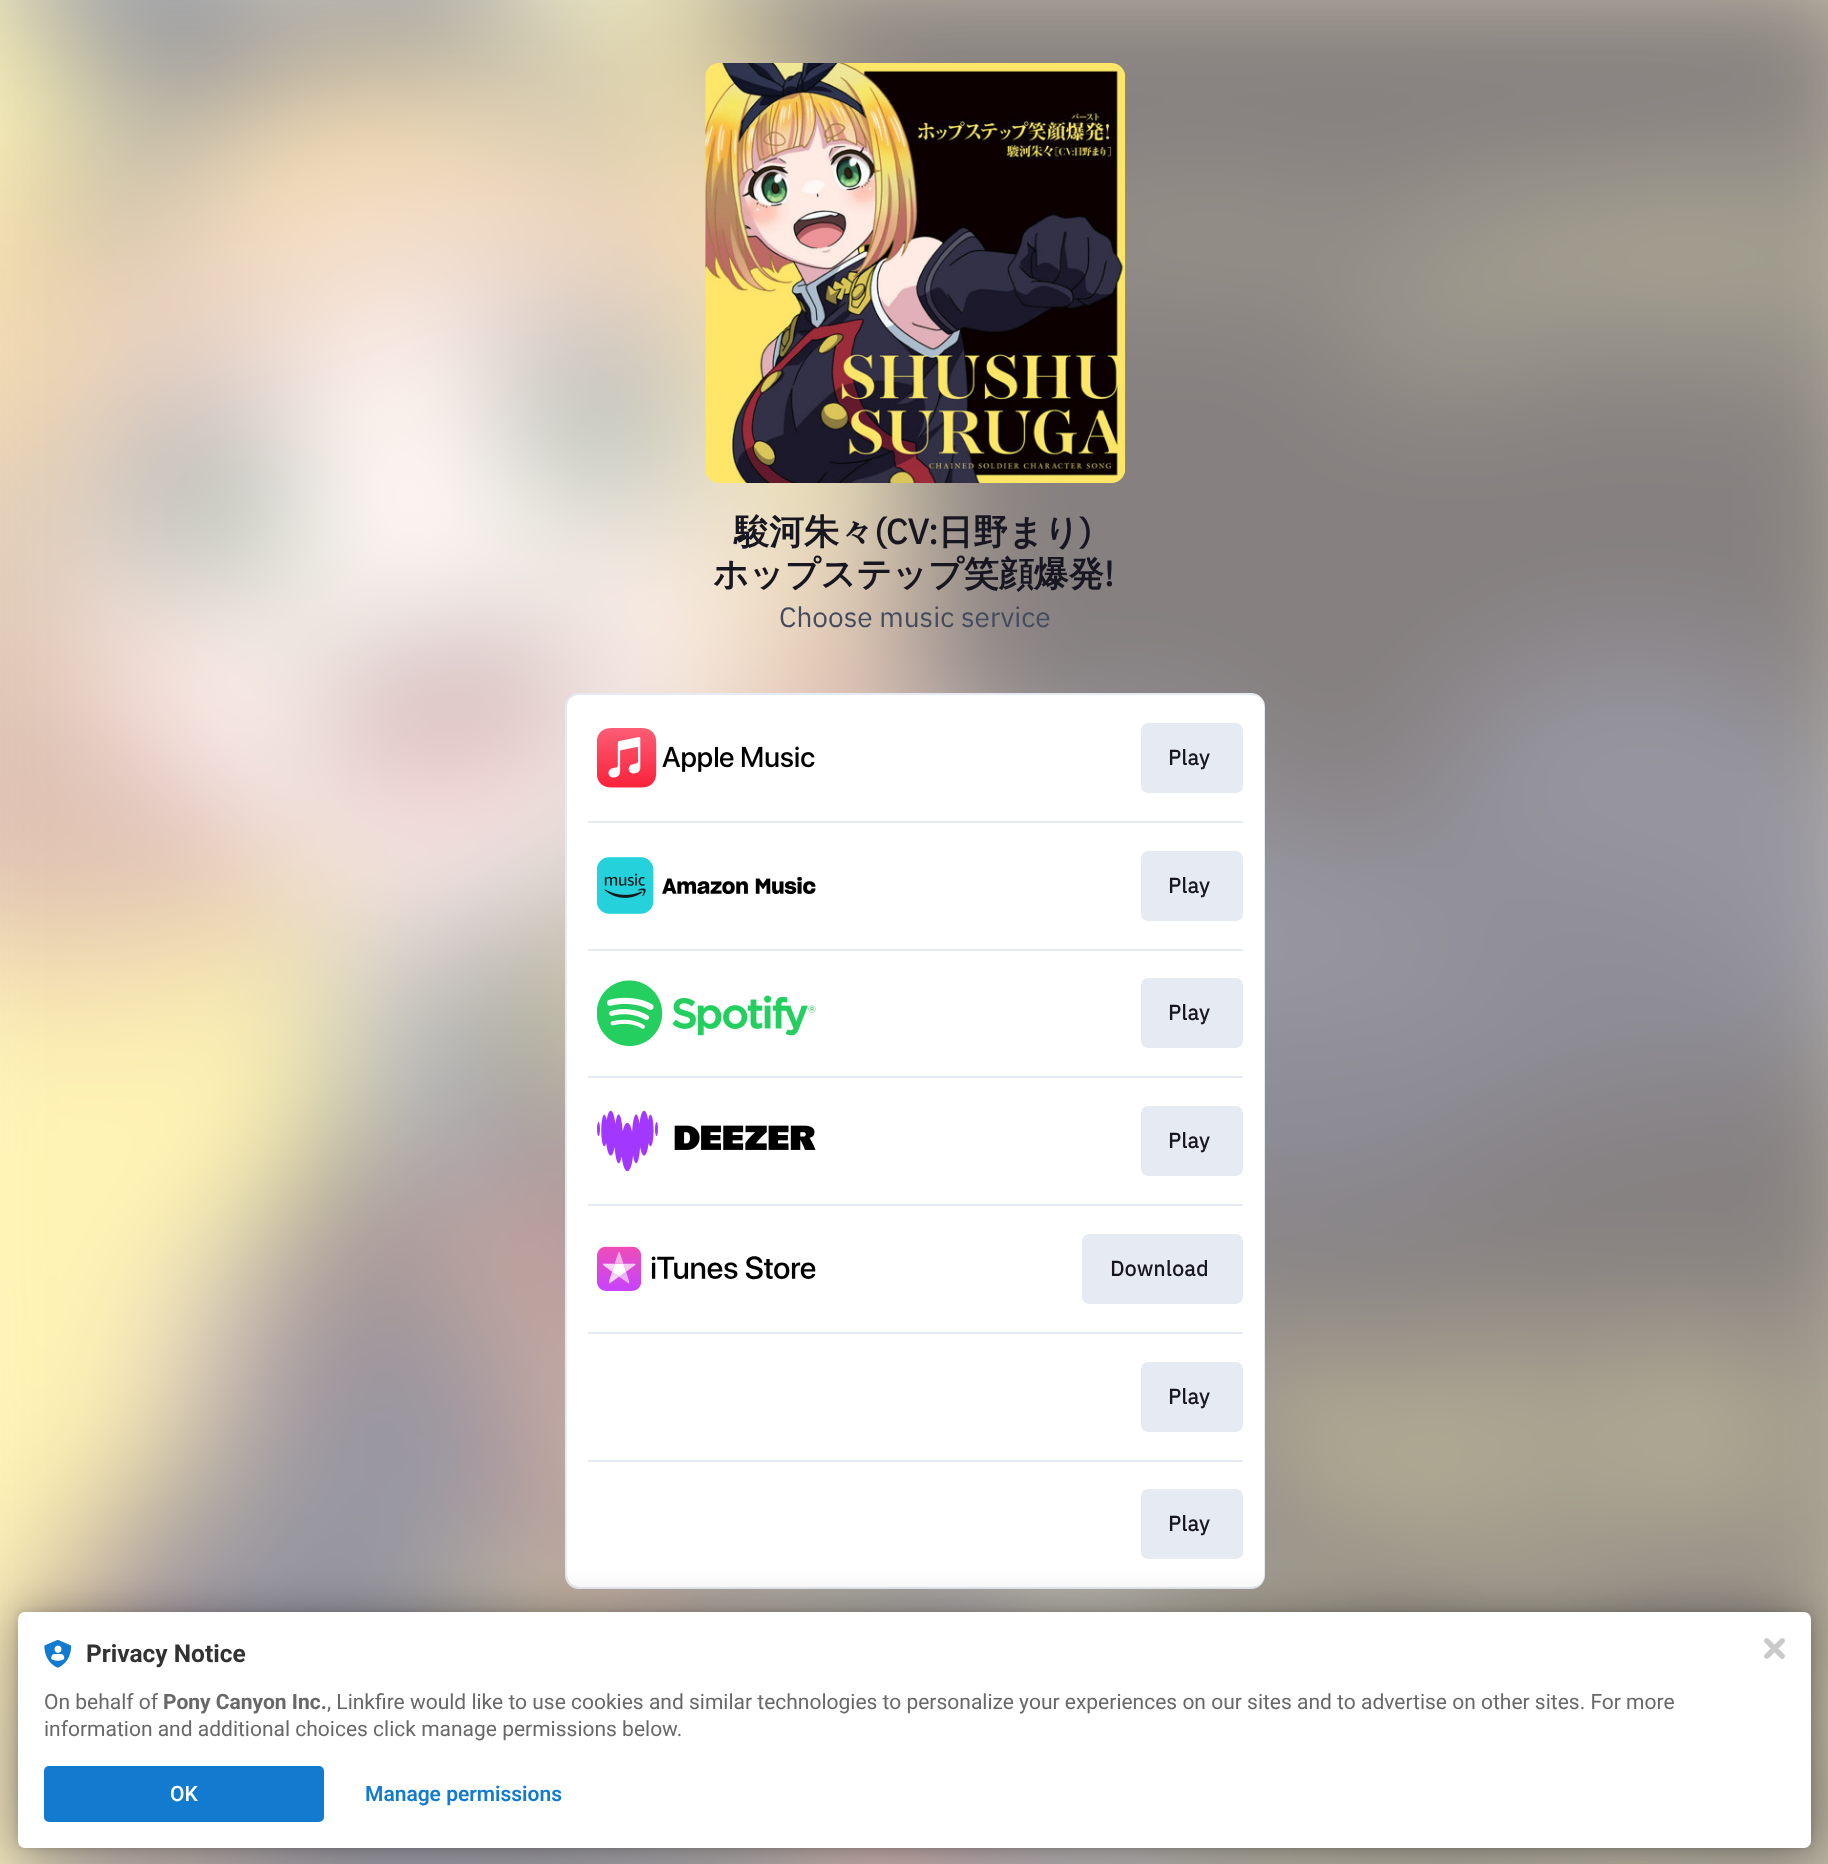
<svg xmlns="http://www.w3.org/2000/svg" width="1828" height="1864">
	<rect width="100%" height="100%" fill="#FFFFFF" />
	<image x="0" y="0" width="1828" height="1864" href="assets/img1.png" />
	<image x="705" y="63" width="421" height="420" href="assets/img2.png" />
	<text x="734" y="544" font-family="WenQuanYi Zen Hei" font-size="35" font-weight="700" fill="#181721">駿河朱々</text>
	<text x="874" y="544" font-family="IBM Plex Sans" font-size="35" font-weight="700" fill="#181721">(CV:</text>
	<text x="938" y="544" font-family="WenQuanYi Zen Hei" font-size="35" font-weight="700" fill="#181721">日野まり</text>
	<text x="1080" y="544" font-family="IBM Plex Sans" font-size="35" font-weight="700" fill="#181721">)</text>
	<text x="713" y="586" font-family="WenQuanYi Zen Hei" font-size="35" font-weight="700" fill="#181721">ホップステップ笑顔爆発</text>
	<text x="1104" y="586" font-family="IBM Plex Sans" font-size="35" font-weight="700" fill="#181721">!</text>
	<text x="779" y="627" font-family="IBM Plex Sans" font-size="28" fill="#454B5F">Choose music service</text>
	<rect x="566" y="694" width="698" height="894" rx="13" fill="none" stroke="#E6EAF2" stroke-width="2" />
	<rect x="567" y="695" width="697" height="892" rx="12" fill="#FFFFFF" />
	<image x="597" y="728" width="218" height="60" href="assets/img3.png" />
	<rect x="1141" y="723" width="102" height="70" rx="7" fill="#E6EAF2" />
	<text x="1168" y="765" font-family="IBM Plex Sans" font-size="21" font-weight="700" letter-spacing="0.5" fill="#181721">Play</text>
	<rect x="588" y="821" width="655" height="2" fill="#E6EAF2" />
	<image x="597" y="857" width="219" height="57" href="assets/img4.png" />
	<rect x="1141" y="851" width="102" height="70" rx="7" fill="#E6EAF2" />
	<text x="1168" y="893" font-family="IBM Plex Sans" font-size="21" font-weight="700" letter-spacing="0.5" fill="#181721">Play</text>
	<rect x="588" y="949" width="655" height="2" fill="#E6EAF2" />
	<image x="597" y="980" width="219" height="66" href="assets/img5.png" />
	<rect x="1141" y="978" width="102" height="70" rx="7" fill="#E6EAF2" />
	<text x="1168" y="1020" font-family="IBM Plex Sans" font-size="21" font-weight="700" letter-spacing="0.5" fill="#181721">Play</text>
	<rect x="588" y="1076" width="655" height="2" fill="#E6EAF2" />
	<image x="597" y="1110" width="219" height="62" href="assets/img6.png" />
	<rect x="1141" y="1106" width="102" height="70" rx="7" fill="#E6EAF2" />
	<text x="1168" y="1148" font-family="IBM Plex Sans" font-size="21" font-weight="700" letter-spacing="0.5" fill="#181721">Play</text>
	<rect x="588" y="1204" width="655" height="2" fill="#E6EAF2" />
	<image x="597" y="1246" width="219" height="45" href="assets/img7.png" />
	<rect x="1082" y="1234" width="161" height="70" rx="7" fill="#E6EAF2" />
	<text x="1110" y="1276" font-family="IBM Plex Sans" font-size="21" font-weight="700" letter-spacing="0.5" fill="#181721">Download</text>
	<rect x="588" y="1332" width="655" height="2" fill="#E6EAF2" />
	<rect x="1141" y="1362" width="102" height="70" rx="7" fill="#E6EAF2" />
	<text x="1168" y="1404" font-family="IBM Plex Sans" font-size="21" font-weight="700" letter-spacing="0.5" fill="#181721">Play</text>
	<rect x="588" y="1460" width="655" height="2" fill="#E6EAF2" />
	<rect x="1141" y="1489" width="102" height="70" rx="7" fill="#E6EAF2" />
	<text x="1168" y="1531" font-family="IBM Plex Sans" font-size="21" font-weight="700" letter-spacing="0.5" fill="#181721">Play</text>
	<rect x="18" y="1612" width="1793" height="236" rx="7" fill="#000000" fill-opacity="0.12" filter="blur(3.5px)" />
	<rect x="18" y="1612" width="1793" height="236" rx="7" fill="#000000" fill-opacity="0.3" filter="blur(21px)" />
	<rect x="18" y="1612" width="1793" height="236" rx="7" fill="#FFFFFF" />
	<image x="44" y="1640" width="28" height="28" href="assets/img8.png" />
	<text x="86" y="1662" font-family="Roboto" font-size="24.5" font-weight="700" fill="#323232">Privacy Notice</text>
	<text x="44" y="1709" font-family="Roboto" font-size="21" fill="#686868">On behalf of</text>
	<text x="163" y="1709" font-family="Roboto" font-size="21" font-weight="700" fill="#686868">Pony Canyon Inc.</text>
	<g font-family="Roboto" font-size="21" fill="#686868">
		<text x="327" y="1709">, Linkfire would like to use cookies and similar technologies to personalize your experiences on our sites and to advertise on other sites. For more</text>
		<text x="44" y="1736">information and additional choices click manage permissions below.</text>
	</g>
	<rect x="44" y="1766" width="280" height="56" rx="5" fill="#137BCF" />
	<text x="170" y="1801" font-family="Roboto" font-size="21" font-weight="500" fill="#FFFFFF">OK</text>
	<text x="365" y="1801" font-family="Roboto" font-size="21" font-weight="600" fill="#137BCF">Manage permissions</text>
	<image x="1764" y="1638" width="21" height="21" href="assets/img9.png" />
</svg>
